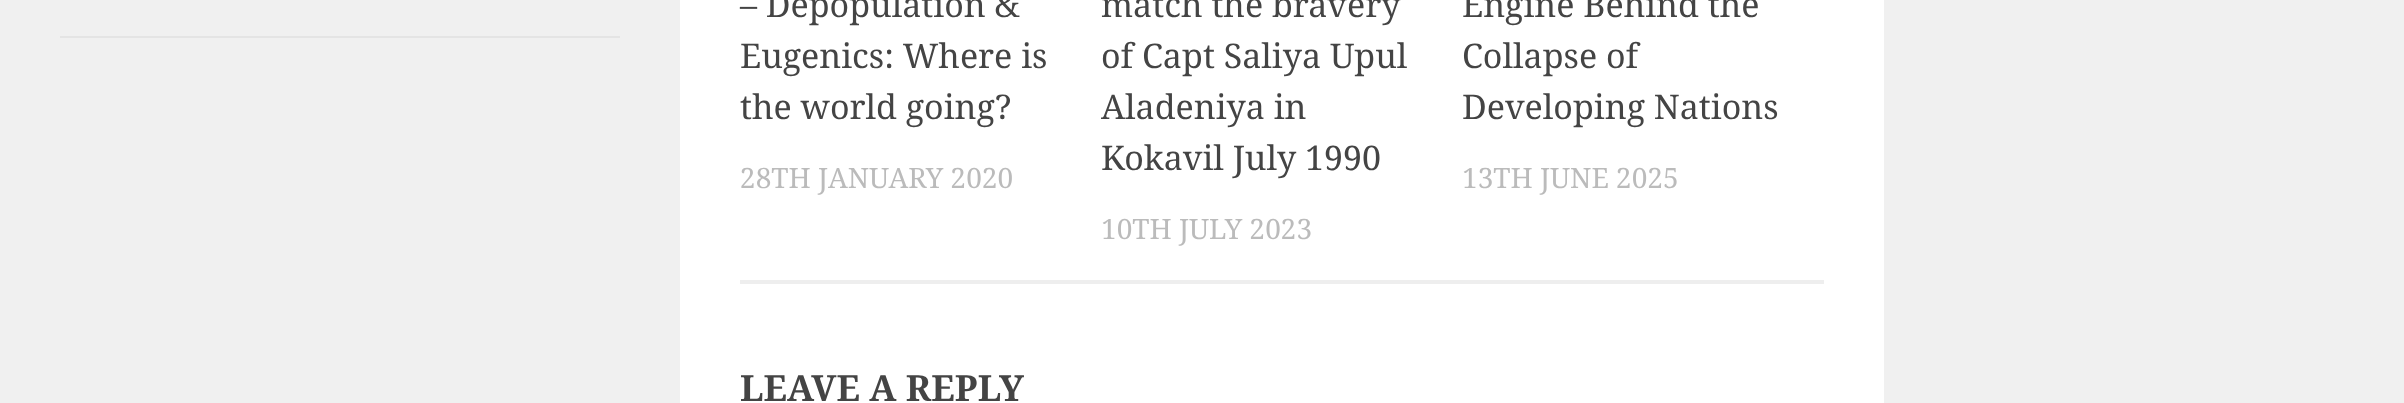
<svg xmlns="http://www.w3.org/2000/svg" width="2404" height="403">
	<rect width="100%" height="100%" fill="#FFFFFF" />
	<rect x="0" y="0" width="680" height="403" fill="#F0F0F0" />
	<rect x="60" y="36" width="560" height="2" fill="#E4E4E4" />
	<rect x="740" y="280" width="1084" height="4" fill="#EEEEEE" />
	<g font-family="Droid Serif" font-size="34" fill="#444444">
		<text x="740" y="17">– Depopulation &amp;</text>
		<text x="740" y="68">Eugenics: Where is</text>
		<text x="740" y="119">the world going?</text>
	</g>
	<text x="740" y="188" font-family="Droid Serif" font-size="28" fill="#BBBBBB">28TH JANUARY 2020</text>
	<g font-family="Droid Serif" font-size="34" fill="#444444">
		<text x="1101" y="17">match the bravery</text>
		<text x="1101" y="68">of Capt Saliya Upul</text>
		<text x="1101" y="119">Aladeniya in</text>
		<text x="1101" y="170">Kokavil July 1990</text>
	</g>
	<text x="1101" y="239" font-family="Droid Serif" font-size="28" fill="#BBBBBB">10TH JULY 2023</text>
	<g font-family="Droid Serif" font-size="34" fill="#444444">
		<text x="1462" y="17">Engine Behind the</text>
		<text x="1462" y="68">Collapse of</text>
		<text x="1462" y="119">Developing Nations</text>
	</g>
	<text x="1462" y="188" font-family="Droid Serif" font-size="28" fill="#BBBBBB">13TH JUNE 2025</text>
	<text x="740" y="401" font-family="Droid Serif" font-size="36" font-weight="700" fill="#444444">LEAVE A REPLY</text>
	<rect x="1884" y="0" width="520" height="403" fill="#F0F0F0" />
</svg>
